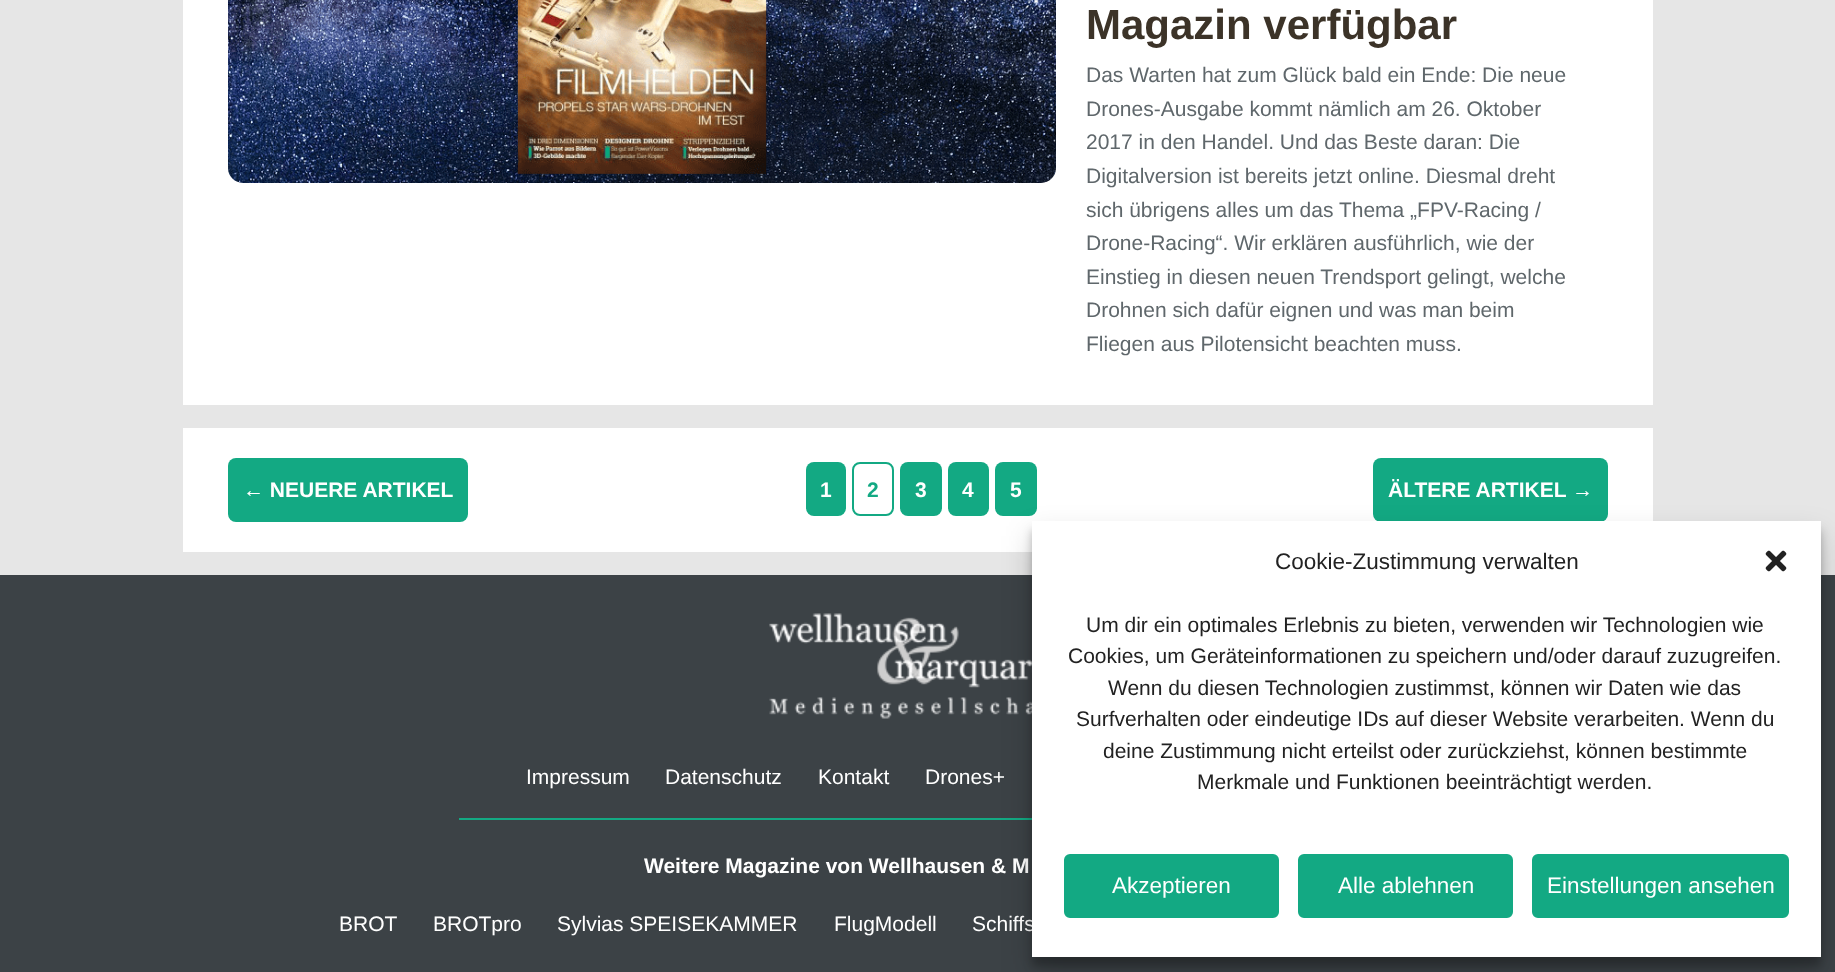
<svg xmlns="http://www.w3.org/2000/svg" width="1835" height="972">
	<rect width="100%" height="100%" fill="#E6E6E6" />
	<rect x="183" y="0" width="1470" height="405" fill="#FFFFFF" />
	<image x="228" y="0" width="828" height="183" href="assets/img1.png" />
	<text x="1086" y="39" font-family="Liberation Sans" font-size="42" font-weight="700" fill="#3C3328">Magazin verfügbar</text>
	<g font-family="Liberation Sans" font-size="21" fill="#5F676B">
		<text x="1086" y="82">Das Warten hat zum Glück bald ein Ende: Die neue</text>
		<text x="1086" y="116">Drones-Ausgabe kommt nämlich am 26. Oktober</text>
		<text x="1086" y="149">2017 in den Handel. Und das Beste daran: Die</text>
		<text x="1086" y="183">Digitalversion ist bereits jetzt online. Diesmal dreht</text>
		<text x="1086" y="217">sich übrigens alles um das Thema „FPV-Racing /</text>
		<text x="1086" y="250">Drone-Racing“. Wir erklären ausführlich, wie der</text>
		<text x="1086" y="284">Einstieg in diesen neuen Trendsport gelingt, welche</text>
		<text x="1086" y="317">Drohnen sich dafür eignen und was man beim</text>
		<text x="1086" y="351">Fliegen aus Pilotensicht beachten muss.</text>
	</g>
	<rect x="183" y="428" width="1470" height="124" fill="#FFFFFF" />
	<rect x="228" y="458" width="240" height="64" rx="8" fill="#13A983" />
	<text x="243" y="497" font-family="Liberation Sans" font-size="21" font-weight="700" fill="#FFFFFF">← NEUERE ARTIKEL</text>
	<rect x="806" y="462" width="40" height="54" rx="8" fill="#13A983" />
	<text x="820" y="497" font-family="Liberation Sans" font-size="21" font-weight="700" fill="#FFFFFF">1</text>
	<rect x="853" y="463" width="40" height="52" rx="7" fill="none" stroke="#13A983" stroke-width="2" />
	<text x="867" y="497" font-family="Liberation Sans" font-size="21" font-weight="700" fill="#13A983">2</text>
	<rect x="900" y="462" width="42" height="54" rx="8" fill="#13A983" />
	<text x="915" y="497" font-family="Liberation Sans" font-size="21" font-weight="700" fill="#FFFFFF">3</text>
	<rect x="948" y="462" width="41" height="54" rx="8" fill="#13A983" />
	<text x="962" y="497" font-family="Liberation Sans" font-size="21" font-weight="700" fill="#FFFFFF">4</text>
	<rect x="995" y="462" width="42" height="54" rx="8" fill="#13A983" />
	<text x="1010" y="497" font-family="Liberation Sans" font-size="21" font-weight="700" fill="#FFFFFF">5</text>
	<rect x="1373" y="458" width="235" height="64" rx="8" fill="#13A983" />
	<text x="1388" y="497" font-family="Liberation Sans" font-size="21" font-weight="700" fill="#FFFFFF">ÄLTERE ARTIKEL →</text>
	<rect x="0" y="575" width="1835" height="397" fill="#3C4246" />
	<image x="769" y="613" width="263" height="106" href="assets/img2.png" />
	<g font-family="Liberation Sans" font-size="21" fill="#FFFFFF">
		<text x="526" y="784">Impressum</text>
		<text x="665" y="784">Datenschutz</text>
		<text x="818" y="784">Kontakt</text>
		<text x="925" y="784">Drones+</text>
	</g>
	<rect x="459" y="818" width="573" height="2" fill="#13A983" />
	<text x="644" y="873" font-family="Liberation Sans" font-size="21" font-weight="700" fill="#FFFFFF">Weitere Magazine von Wellhausen &amp; M</text>
	<g font-family="Liberation Sans" font-size="21" fill="#FFFFFF">
		<text x="339" y="931">BROT</text>
		<text x="433" y="931">BROTpro</text>
		<text x="557" y="931">Sylvias SPEISEKAMMER</text>
		<text x="834" y="931">FlugModell</text>
		<text x="972" y="931">Schiffs</text>
	</g>
	<rect x="1032" y="530" width="789" height="436" fill="#000000" fill-opacity="0.23" filter="blur(4.5px)" />
	<rect x="1032" y="536" width="789" height="436" fill="#000000" fill-opacity="0.19" filter="blur(15px)" />
	<rect x="1032" y="521" width="789" height="436" fill="#FFFFFF" />
	<text x="1275" y="569" font-family="Liberation Sans" font-size="22.5" fill="#222222">Cookie-Zustimmung verwalten</text>
	<image x="1765" y="550" width="22" height="22" href="assets/img3.png" />
	<g font-family="Liberation Sans" font-size="21" fill="#222222">
		<text x="1086" y="632">Um dir ein optimales Erlebnis zu bieten, verwenden wir Technologien wie</text>
		<text x="1068" y="663">Cookies, um Geräteinformationen zu speichern und/oder darauf zuzugreifen.</text>
		<text x="1108" y="695">Wenn du diesen Technologien zustimmst, können wir Daten wie das</text>
		<text x="1076" y="726">Surfverhalten oder eindeutige IDs auf dieser Website verarbeiten. Wenn du</text>
		<text x="1103" y="758">deine Zustimmung nicht erteilst oder zurückziehst, können bestimmte</text>
		<text x="1197" y="789">Merkmale und Funktionen beeinträchtigt werden.</text>
	</g>
	<rect x="1063" y="853" width="217" height="66" rx="7" fill="#13A983" stroke="#FFFFFF" stroke-width="2" />
	<text x="1112" y="893" font-family="Liberation Sans" font-size="22.5" fill="#FFFFFF">Akzeptieren</text>
	<rect x="1297" y="853" width="217" height="66" rx="7" fill="#13A983" stroke="#FFFFFF" stroke-width="2" />
	<text x="1338" y="893" font-family="Liberation Sans" font-size="22.5" fill="#FFFFFF">Alle ablehnen</text>
	<rect x="1531" y="853" width="259" height="66" rx="7" fill="#13A983" stroke="#FFFFFF" stroke-width="2" />
	<text x="1547" y="893" font-family="Liberation Sans" font-size="22.5" fill="#FFFFFF">Einstellungen ansehen</text>
</svg>
